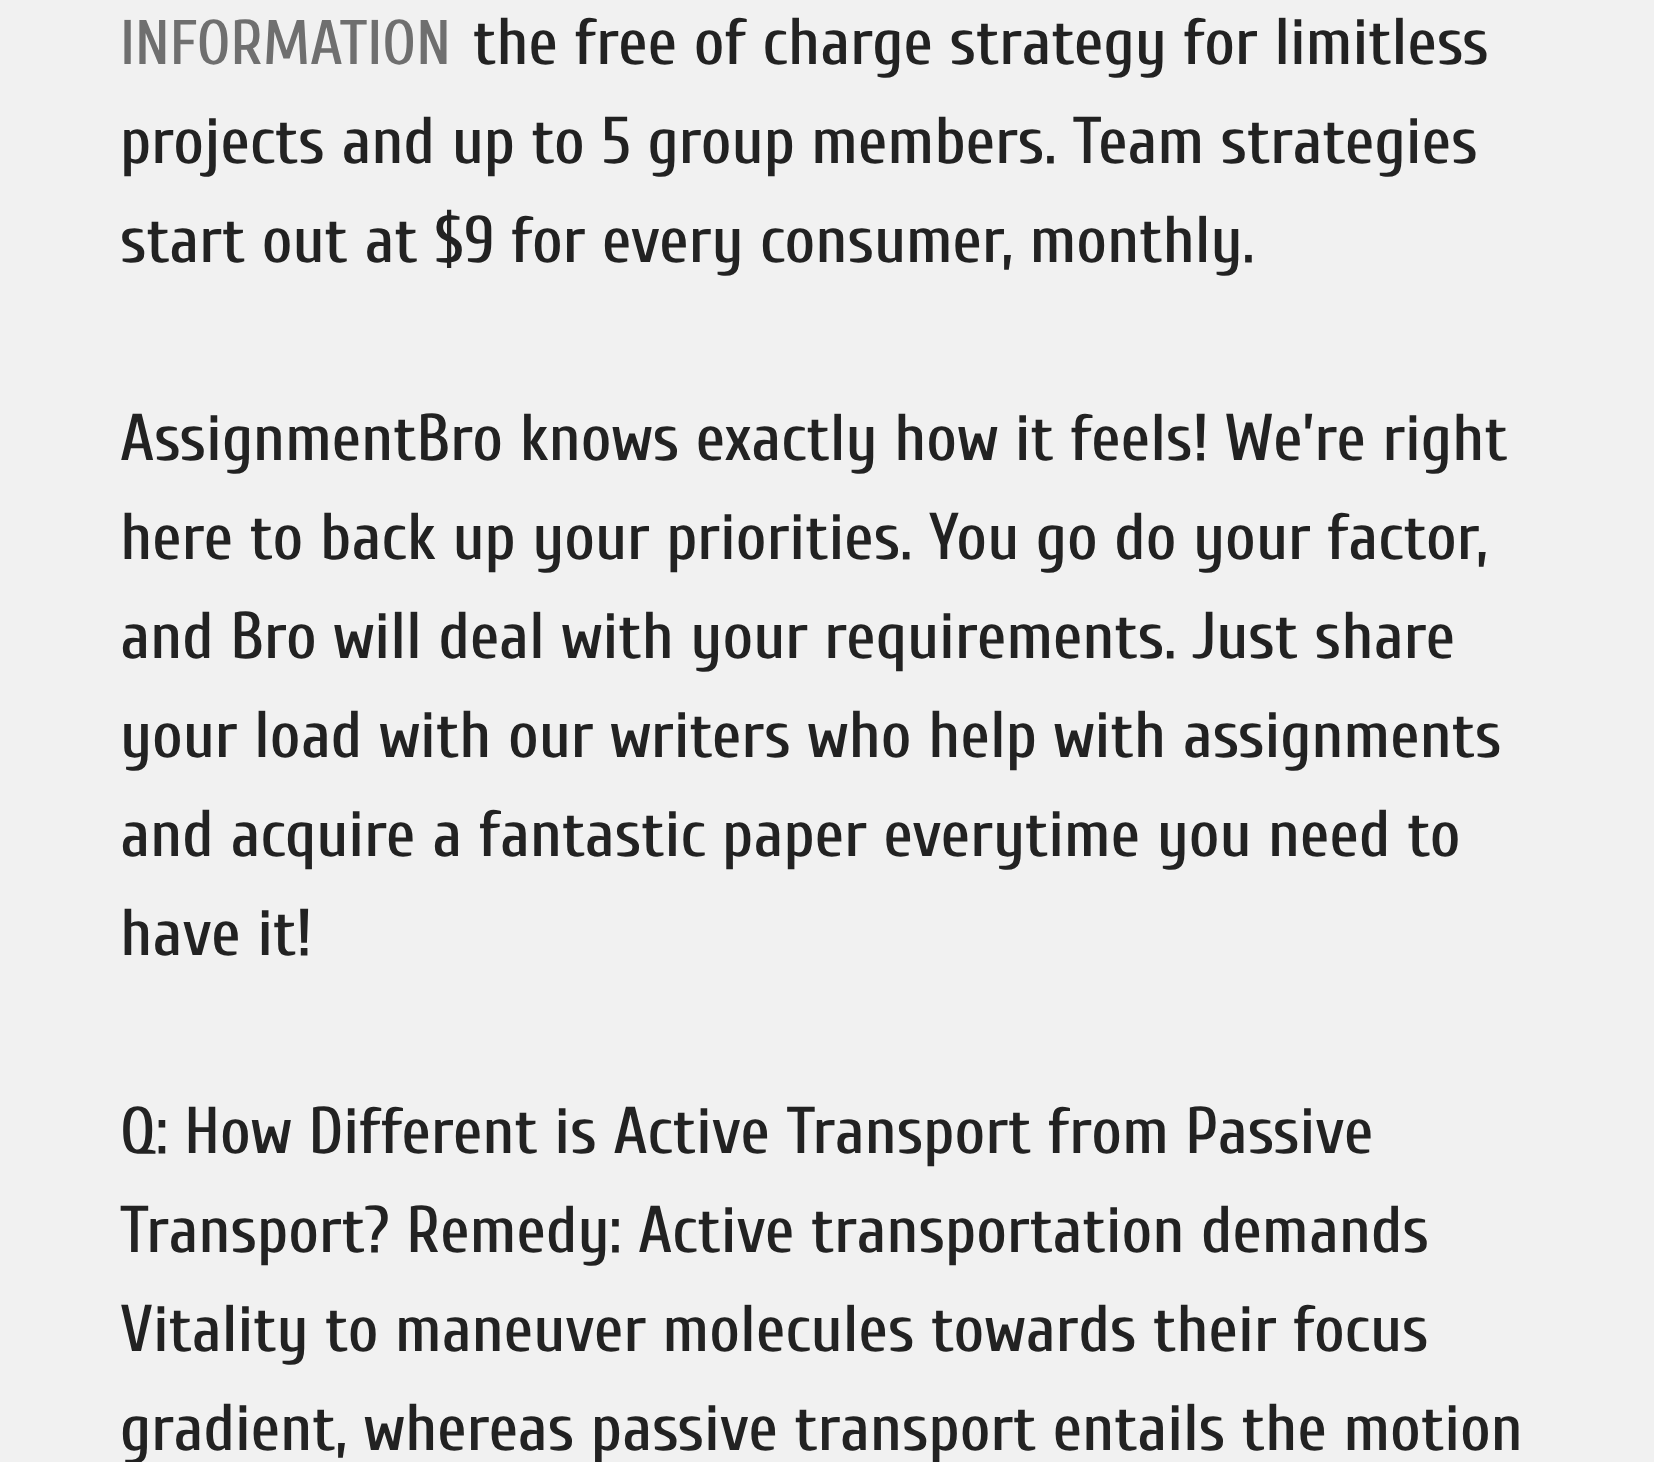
<svg xmlns="http://www.w3.org/2000/svg" width="1654" height="1462">
	<rect width="100%" height="100%" fill="#F1F1F1" />
	<text x="120" y="64" font-family="Cuprum" font-size="63" font-weight="500" fill="#6F6F6F">INFORMATION</text>
	<g font-family="Cuprum" font-size="66" font-weight="500" fill="#222222">
		<text x="473" y="64">the free of charge strategy for limitless</text>
		<text x="120" y="163">projects and up to 5 group members. Team strategies</text>
		<text x="120" y="262">start out at $9 for every consumer, monthly.</text>
		<text x="120" y="460">AssignmentBro knows exactly how it feels! We’re right</text>
		<text x="120" y="559">here to back up your priorities. You go do your factor,</text>
		<text x="120" y="658">and Bro will deal with your requirements. Just share</text>
		<text x="120" y="757">your load with our writers who help with assignments</text>
		<text x="120" y="856">and acquire a fantastic paper everytime you need to</text>
		<text x="120" y="955">have it!</text>
		<text x="120" y="1153">Q: How Different is Active Transport from Passive</text>
		<text x="120" y="1252">Transport? Remedy: Active transportation demands</text>
		<text x="120" y="1351">Vitality to maneuver molecules towards their focus</text>
		<text x="120" y="1450">gradient, whereas passive transport entails the motion</text>
	</g>
</svg>
